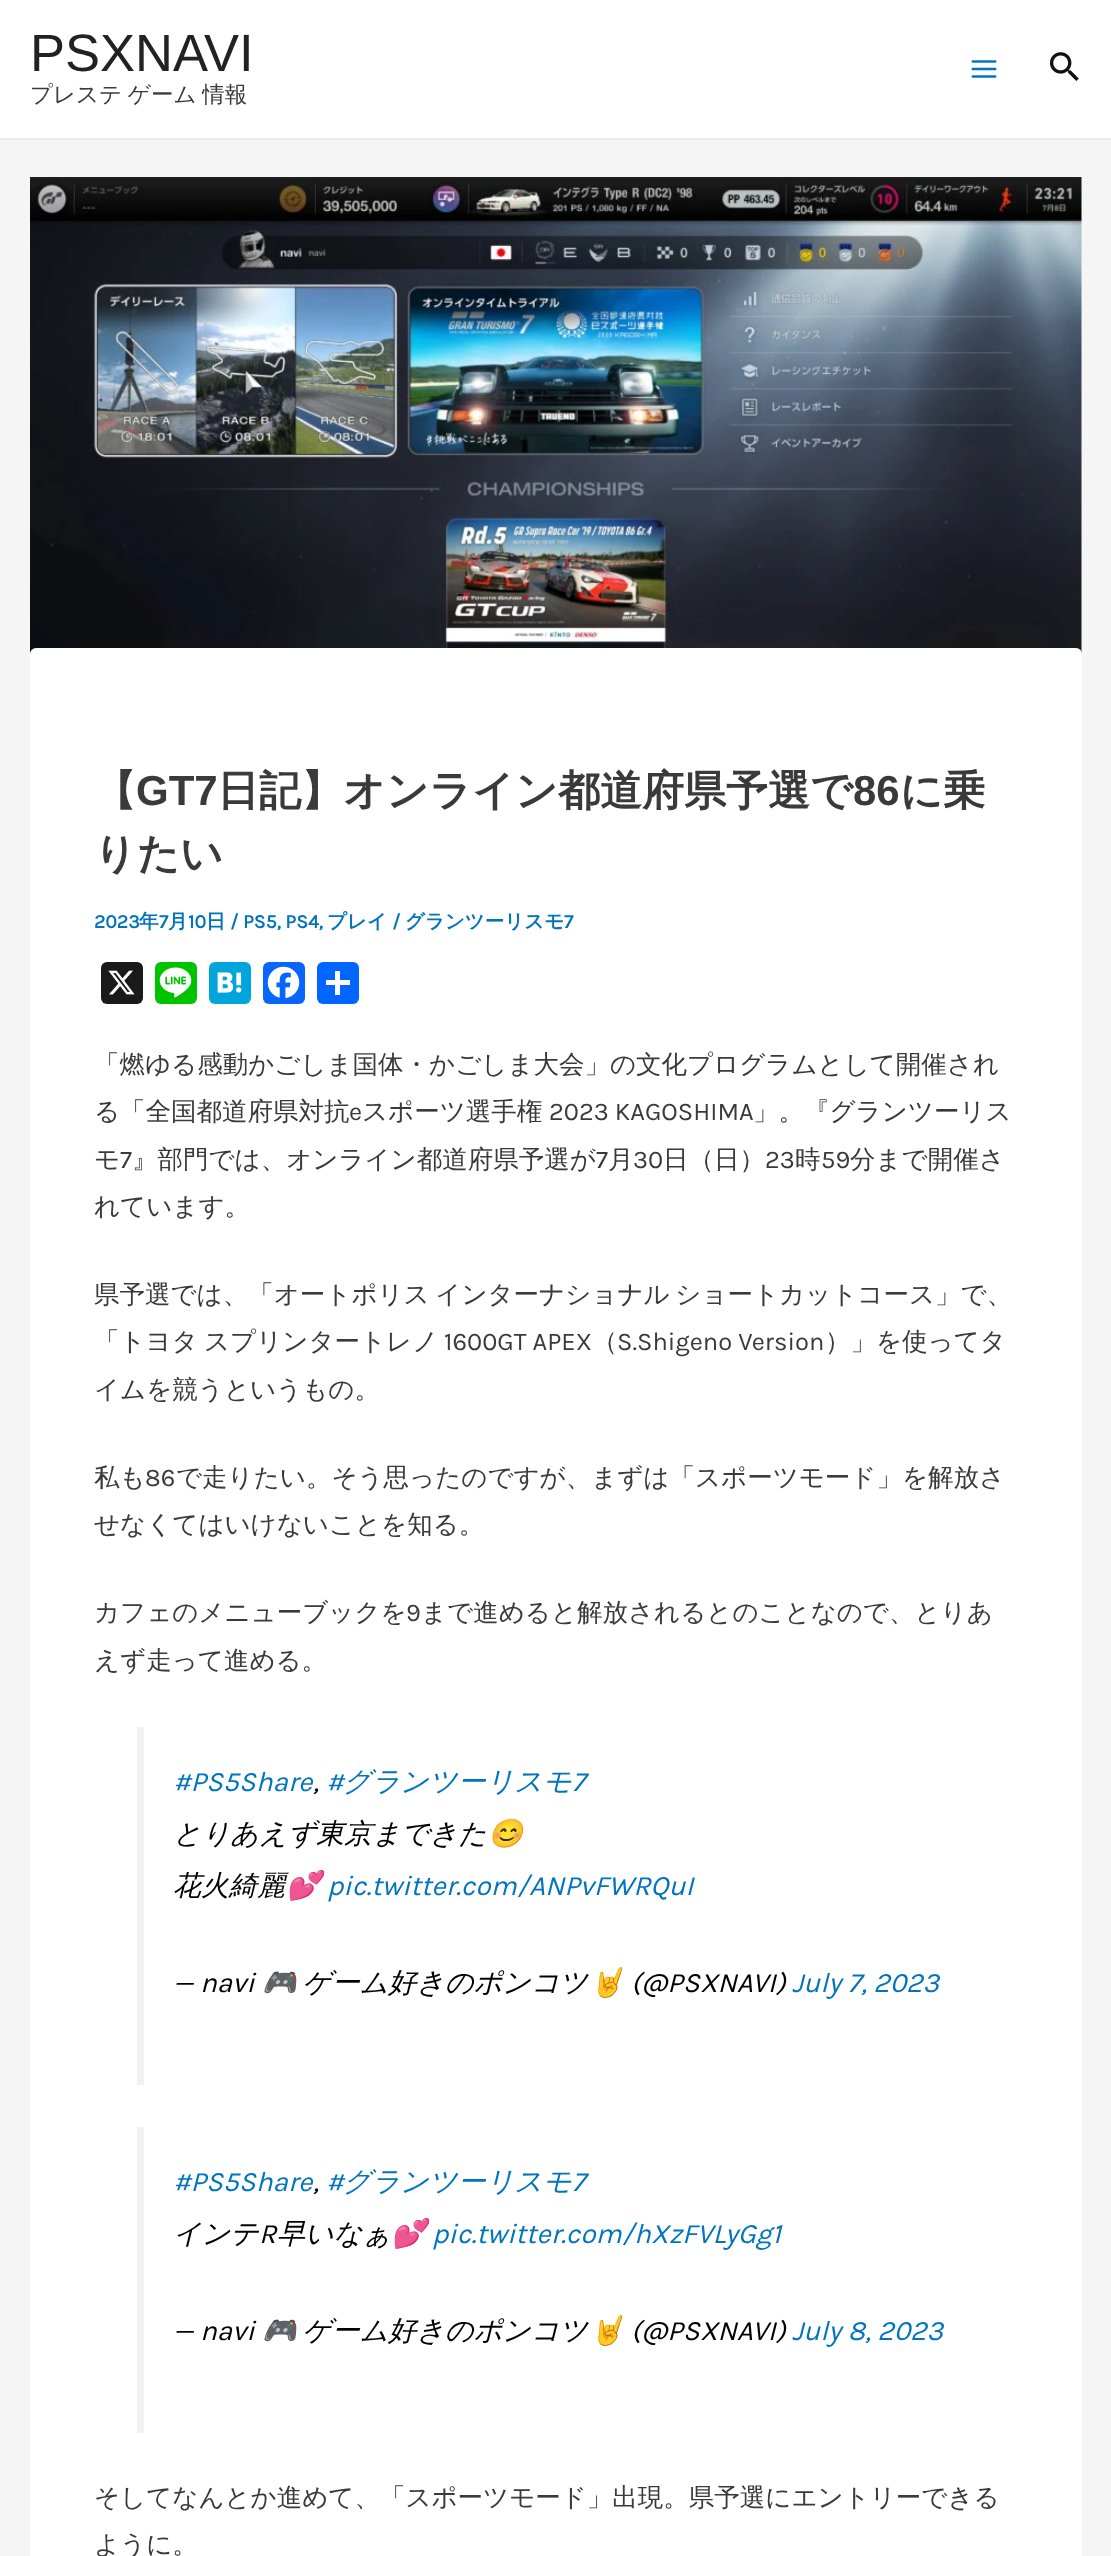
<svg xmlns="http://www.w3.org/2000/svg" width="1111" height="2556">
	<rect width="100%" height="100%" fill="#F5F5F5" />
	<rect x="0" y="0" width="1111" height="138" fill="#FFFFFF" />
	<rect x="0" y="138" width="1111" height="2" fill="#EAEAEA" />
	<text x="30" y="71" font-family="Liberation Sans" font-size="52.5" fill="#222222">PSXNAVI</text>
	<text x="30" y="102" word-spacing="-1" font-family="WenQuanYi Zen Hei" font-size="22.5" font-weight="500" fill="#3A3A3A">プレステ ゲーム 情報</text>
	<image x="971" y="60" width="26" height="18" href="assets/img1.png" />
	<image x="1049" y="52" width="30" height="29" href="assets/img2.png" />
	<image x="30" y="177" width="1052" height="477" href="assets/img3.png" />
	<rect x="30" y="648" width="1052" height="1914" rx="6" fill="#FFFFFF" />
	<text x="94" y="805" font-family="WenQuanYi Zen Hei" font-size="42" font-weight="700" fill="#3A3A3A">【</text>
	<text x="136" y="805" font-family="Liberation Sans" font-size="42" font-weight="700" fill="#3A3A3A">GT7</text>
	<text x="217" y="805" font-family="WenQuanYi Zen Hei" font-size="42" font-weight="700" fill="#3A3A3A">日記】オンライン都道府県予選で</text>
	<text x="853" y="805" font-family="Liberation Sans" font-size="42" font-weight="700" fill="#3A3A3A">86</text>
	<g font-family="WenQuanYi Zen Hei" font-size="42" font-weight="700" fill="#3A3A3A">
		<text x="900" y="805">に乗</text>
		<text x="94" y="868">りたい</text>
	</g>
	<text x="94" y="928" font-family="Karla" font-size="19.5" font-weight="700" fill="#0274BE">2023</text>
	<text x="139" y="928" font-family="WenQuanYi Zen Hei" font-size="19.5" font-weight="700" fill="#0274BE">年</text>
	<text x="159" y="928" font-family="Karla" font-size="19.5" font-weight="700" fill="#0274BE">7</text>
	<text x="168" y="928" font-family="WenQuanYi Zen Hei" font-size="19.5" font-weight="700" fill="#0274BE">月</text>
	<text x="188" y="928" font-family="Karla" font-size="19.5" font-weight="700" fill="#0274BE">10</text>
	<text x="206" y="928" font-family="WenQuanYi Zen Hei" font-size="19.5" font-weight="700" fill="#0274BE">日</text>
	<text x="230" y="928" font-family="Karla" font-size="19.5" font-weight="700" fill="#0274BE">/ PS5, PS4,</text>
	<text x="327" y="928" font-family="WenQuanYi Zen Hei" font-size="19.5" font-weight="700" fill="#0274BE">プレイ</text>
	<text x="392" y="928" font-family="Karla" font-size="19.5" font-weight="700" fill="#0274BE">/</text>
	<text x="405" y="928" font-family="WenQuanYi Zen Hei" font-size="19.5" font-weight="700" fill="#0274BE">グランツーリスモ</text>
	<text x="564" y="928" font-family="Karla" font-size="19.5" font-weight="700" fill="#0274BE">7</text>
	<rect x="101" y="962" width="42" height="42" rx="6" fill="#1A1A1A" />
	<image x="108" y="970" width="27" height="25" href="assets/img4.png" />
	<rect x="155" y="962" width="42" height="42" rx="6" fill="#00C300" />
	<image x="159" y="967" width="33" height="31" href="assets/img5.png" />
	<rect x="209" y="962" width="42" height="42" rx="6" fill="#00A6DB" />
	<image x="217" y="972" width="25" height="21" href="assets/img6.png" />
	<rect x="263" y="962" width="42" height="42" rx="6" fill="#0866FF" />
	<image x="267" y="966" width="33" height="33" href="assets/img7.png" />
	<rect x="317" y="962" width="42" height="42" rx="6" fill="#0166FF" />
	<rect x="335" y="971" width="5" height="24" fill="#FFFFFF" />
	<rect x="326" y="980" width="24" height="5" fill="#FFFFFF" />
	<g font-family="WenQuanYi Zen Hei" font-size="25.5" font-weight="500" fill="#3A3A3A">
		<text x="94" y="1073">「燃ゆる感動かごしま国体・かごしま大会」の文化プログラムとして開催され</text>
		<text x="94" y="1120">る「全国都道府県対抗</text>
	</g>
	<text x="349" y="1120" font-family="Karla" font-size="25.5" fill="#3A3A3A">e</text>
	<text x="362" y="1120" font-family="WenQuanYi Zen Hei" font-size="25.5" font-weight="500" fill="#3A3A3A">スポーツ選手権</text>
	<text x="549" y="1120" font-family="Karla" font-size="25.5" fill="#3A3A3A">2023 KAGOSHIMA</text>
	<g font-family="WenQuanYi Zen Hei" font-size="25.5" font-weight="500" fill="#3A3A3A">
		<text x="753" y="1120">」。『グランツーリス</text>
		<text x="94" y="1168">モ</text>
	</g>
	<text x="120" y="1168" font-family="Karla" font-size="25.5" fill="#3A3A3A">7</text>
	<text x="132" y="1168" font-family="WenQuanYi Zen Hei" font-size="25.5" font-weight="500" fill="#3A3A3A">』部門では、オンライン都道府県予選が</text>
	<text x="596" y="1168" font-family="Karla" font-size="25.5" fill="#3A3A3A">7</text>
	<text x="608" y="1168" font-family="WenQuanYi Zen Hei" font-size="25.5" font-weight="500" fill="#3A3A3A">月</text>
	<text x="633" y="1168" font-family="Karla" font-size="25.5" fill="#3A3A3A">30</text>
	<text x="663" y="1168" font-family="WenQuanYi Zen Hei" font-size="25.5" font-weight="500" fill="#3A3A3A">日（日）</text>
	<text x="765" y="1168" font-family="Karla" font-size="25.5" fill="#3A3A3A">23</text>
	<text x="795" y="1168" font-family="WenQuanYi Zen Hei" font-size="25.5" font-weight="500" fill="#3A3A3A">時</text>
	<text x="821" y="1168" font-family="Karla" font-size="25.5" fill="#3A3A3A">59</text>
	<g font-family="WenQuanYi Zen Hei" font-size="25.5" font-weight="500" fill="#3A3A3A">
		<text x="850" y="1168">分まで開催さ</text>
		<text x="94" y="1215">れています。</text>
		<text x="94" y="1303" word-spacing="-2">県予選では、「オートポリス インターナショナル ショートカットコース」で、</text>
		<text x="94" y="1350">「トヨタ</text>
		<text x="204" y="1350">スプリンタートレノ</text>
	</g>
	<text x="444" y="1350" font-family="Karla" font-size="25.5" fill="#3A3A3A">1600GT APEX</text>
	<text x="592" y="1350" font-family="WenQuanYi Zen Hei" font-size="25.5" font-weight="500" fill="#3A3A3A">（</text>
	<text x="617" y="1350" font-family="Karla" font-size="25.5" fill="#3A3A3A">S.Shigeno Version</text>
	<g font-family="WenQuanYi Zen Hei" font-size="25.5" font-weight="500" fill="#3A3A3A">
		<text x="825" y="1350">）」を使ってタ</text>
		<text x="94" y="1398">イムを競うというもの。</text>
		<text x="94" y="1486">私も</text>
	</g>
	<text x="145" y="1486" font-family="Karla" font-size="25.5" fill="#3A3A3A">86</text>
	<g font-family="WenQuanYi Zen Hei" font-size="25.5" font-weight="500" fill="#3A3A3A">
		<text x="176" y="1486">で走りたい。そう思ったのですが、まずは「スポーツモード」を解放さ</text>
		<text x="94" y="1533">せなくてはいけないことを知る。</text>
		<text x="94" y="1621">カフェのメニューブックを</text>
	</g>
	<text x="406" y="1621" font-family="Karla" font-size="25.5" fill="#3A3A3A">9</text>
	<g font-family="WenQuanYi Zen Hei" font-size="25.5" font-weight="500" fill="#3A3A3A">
		<text x="421" y="1621">まで進めると解放されるとのことなので、とりあ</text>
		<text x="94" y="1669">えず走って進める。</text>
	</g>
	<rect x="137" y="1727" width="7" height="358" fill="#F2F2F2" />
	<text x="173" y="1791" font-family="Karla" font-size="28" font-style="italic" fill="#0274BE">#PS5Share</text>
	<text x="313" y="1791" font-family="Karla" font-size="28" font-style="italic" fill="#000000">,</text>
	<text x="326" y="1791" font-family="Karla" font-size="28" font-style="italic" fill="#0274BE">#</text>
	<text x="343" y="1791" font-family="WenQuanYi Zen Hei" font-size="28" font-weight="500" font-style="italic" fill="#0274BE">グランツーリスモ</text>
	<text x="572" y="1791" font-family="Karla" font-size="28" font-style="italic" fill="#0274BE">7</text>
	<text x="173" y="1843" font-family="WenQuanYi Zen Hei" font-size="28" font-weight="500" font-style="italic" fill="#000000">とりあえず東京まできた</text>
	<text x="488" y="1843" font-family="Noto Color Emoji" font-size="28" font-style="italic" fill="#000000">😊</text>
	<text x="173" y="1895" font-family="WenQuanYi Zen Hei" font-size="28" font-weight="500" font-style="italic" fill="#000000">花火綺麗</text>
	<text x="286" y="1895" font-family="Noto Color Emoji" font-size="28" font-style="italic" fill="#000000">💕</text>
	<text x="327" y="1895" font-family="Karla" font-size="28" font-style="italic" fill="#0274BE">pic.twitter.com/ANPvFWRQuI</text>
	<text x="173" y="1992" font-family="Karla" font-size="28" font-style="italic" fill="#000000">— navi</text>
	<text x="262" y="1992" font-family="Noto Color Emoji" font-size="28" font-style="italic" fill="#000000">🎮</text>
	<text x="303" y="1992" font-family="WenQuanYi Zen Hei" font-size="28" font-weight="500" font-style="italic" fill="#000000">ゲーム好きのポンコツ</text>
	<text x="589" y="1992" font-family="Noto Color Emoji" font-size="28" font-style="italic" fill="#000000">🤘</text>
	<text x="631" y="1992" font-family="Karla" font-size="28" font-style="italic" fill="#000000">(@PSXNAVI)</text>
	<text x="792" y="1992" font-family="Karla" font-size="28" font-style="italic" fill="#0274BE">July 7, 2023</text>
	<rect x="137" y="2127" width="7" height="306" fill="#F2F2F2" />
	<text x="173" y="2191" font-family="Karla" font-size="28" font-style="italic" fill="#0274BE">#PS5Share</text>
	<text x="313" y="2191" font-family="Karla" font-size="28" font-style="italic" fill="#000000">,</text>
	<text x="326" y="2191" font-family="Karla" font-size="28" font-style="italic" fill="#0274BE">#</text>
	<text x="343" y="2191" font-family="WenQuanYi Zen Hei" font-size="28" font-weight="500" font-style="italic" fill="#0274BE">グランツーリスモ</text>
	<text x="572" y="2191" font-family="Karla" font-size="28" font-style="italic" fill="#0274BE">7</text>
	<text x="173" y="2243" font-family="WenQuanYi Zen Hei" font-size="28" font-weight="500" font-style="italic" fill="#000000">インテ</text>
	<text x="259" y="2243" font-family="Karla" font-size="28" font-style="italic" fill="#000000">R</text>
	<text x="277" y="2243" font-family="WenQuanYi Zen Hei" font-size="28" font-weight="500" font-style="italic" fill="#000000">早いなぁ</text>
	<text x="391" y="2243" font-family="Noto Color Emoji" font-size="28" font-style="italic" fill="#000000">💕</text>
	<text x="432" y="2243" font-family="Karla" font-size="28" font-style="italic" fill="#0274BE">pic.twitter.com/hXzFVLyGg1</text>
	<text x="173" y="2340" font-family="Karla" font-size="28" font-style="italic" fill="#000000">— navi</text>
	<text x="262" y="2340" font-family="Noto Color Emoji" font-size="28" font-style="italic" fill="#000000">🎮</text>
	<text x="303" y="2340" font-family="WenQuanYi Zen Hei" font-size="28" font-weight="500" font-style="italic" fill="#000000">ゲーム好きのポンコツ</text>
	<text x="589" y="2340" font-family="Noto Color Emoji" font-size="28" font-style="italic" fill="#000000">🤘</text>
	<text x="631" y="2340" font-family="Karla" font-size="28" font-style="italic" fill="#000000">(@PSXNAVI)</text>
	<text x="792" y="2340" font-family="Karla" font-size="28" font-style="italic" fill="#0274BE">July 8, 2023</text>
	<g font-family="WenQuanYi Zen Hei" font-size="25.5" font-weight="500" fill="#3A3A3A">
		<text x="94" y="2506">そしてなんとか進めて、「スポーツモード」出現。県予選にエントリーできる</text>
		<text x="94" y="2553">ように。</text>
	</g>
</svg>
